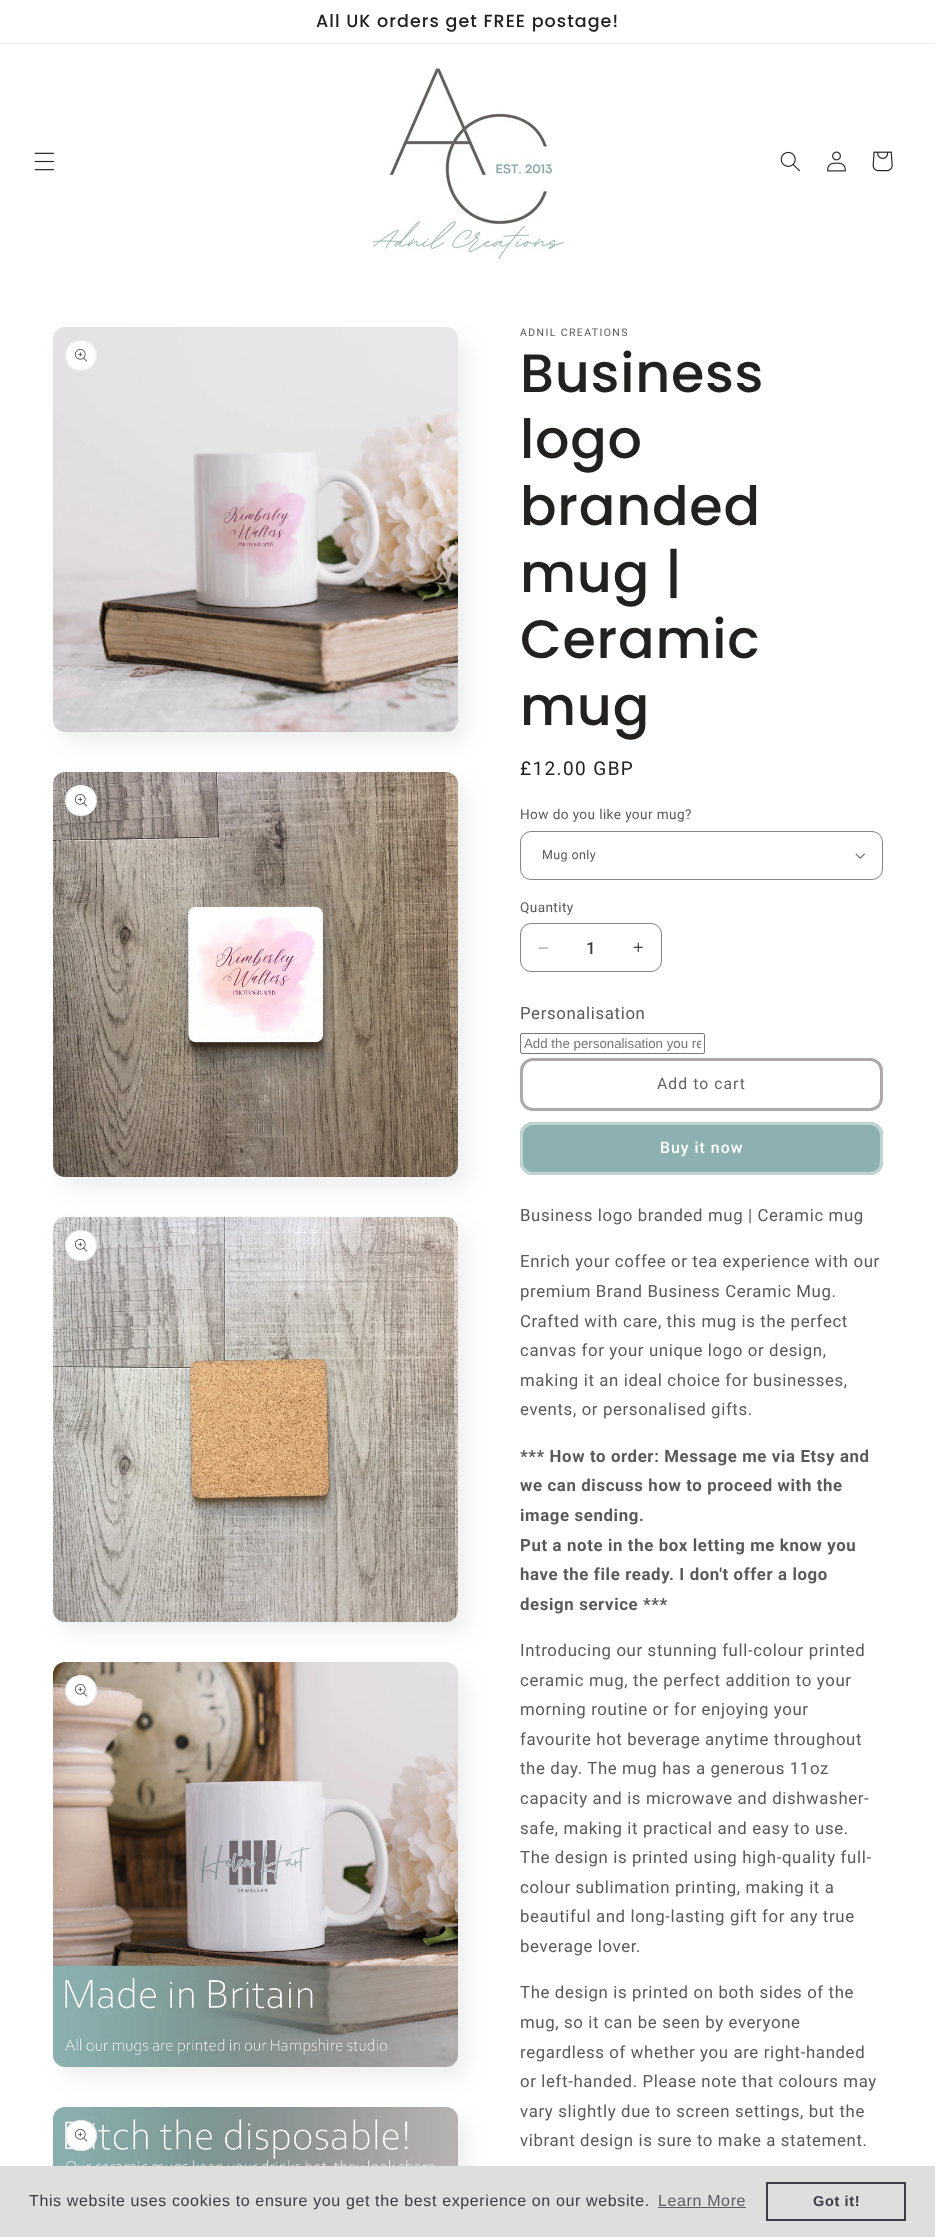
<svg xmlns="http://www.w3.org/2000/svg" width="935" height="2237">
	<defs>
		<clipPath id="clip1"><rect x="524" y="1036" width="177" height="15" /></clipPath>
	</defs>
	<rect width="100%" height="100%" fill="#FFFFFF" />
	<rect x="0" y="43" width="935" height="1" fill="#EDEDED" />
	<text x="316" y="27" font-family="Poppins" font-size="17.5" font-weight="500" letter-spacing="1.05" fill="#222120">All UK orders get FREE postage!</text>
	<image x="34" y="152" width="20" height="19" href="assets/img1.png" />
	<image x="372" y="67" width="192" height="192" href="assets/img2.png" />
	<image x="780" y="151" width="20" height="21" href="assets/img3.png" />
	<image x="827" y="151" width="19" height="21" href="assets/img4.png" />
	<image x="872" y="151" width="21" height="21" href="assets/img5.png" />
	<rect x="63" y="339" width="405" height="405" rx="12" fill="#686360" fill-opacity="0.1" filter="blur(10px)" />
	<image x="53" y="327" width="405" height="405" href="assets/img6.png" />
	<rect x="65" y="340" width="32" height="31" rx="15.5" fill="#FFFFFF" />
	<rect x="65.5" y="340.5" width="31" height="30" rx="15" fill="none" stroke="#222120" stroke-opacity="0.1" />
	<image x="75" y="349" width="12" height="13" href="assets/img7.png" />
	<rect x="63" y="784" width="405" height="405" rx="12" fill="#686360" fill-opacity="0.1" filter="blur(10px)" />
	<image x="53" y="772" width="405" height="405" href="assets/img8.png" />
	<rect x="65" y="785" width="32" height="31" rx="15.5" fill="#FFFFFF" />
	<rect x="65.5" y="785.5" width="31" height="30" rx="15" fill="none" stroke="#222120" stroke-opacity="0.1" />
	<image x="75" y="794" width="12" height="13" href="assets/img7.png" />
	<rect x="63" y="1229" width="405" height="405" rx="12" fill="#686360" fill-opacity="0.1" filter="blur(10px)" />
	<image x="53" y="1217" width="405" height="405" href="assets/img9.png" />
	<rect x="65" y="1230" width="32" height="31" rx="15.5" fill="#FFFFFF" />
	<rect x="65.5" y="1230.5" width="31" height="30" rx="15" fill="none" stroke="#222120" stroke-opacity="0.1" />
	<image x="75" y="1239" width="12" height="13" href="assets/img7.png" />
	<rect x="63" y="1674" width="405" height="405" rx="12" fill="#686360" fill-opacity="0.1" filter="blur(10px)" />
	<image x="53" y="1662" width="405" height="405" href="assets/img10.png" />
	<rect x="65" y="1675" width="32" height="31" rx="15.5" fill="#FFFFFF" />
	<rect x="65.5" y="1675.5" width="31" height="30" rx="15" fill="none" stroke="#222120" stroke-opacity="0.1" />
	<image x="75" y="1684" width="12" height="13" href="assets/img7.png" />
	<rect x="63" y="2119" width="405" height="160" rx="12" fill="#686360" fill-opacity="0.1" filter="blur(10px)" />
	<image x="53" y="2107" width="405" height="59" href="assets/img11.png" />
	<rect x="65" y="2120" width="32" height="31" rx="15.5" fill="#FFFFFF" />
	<rect x="65.5" y="2120.5" width="31" height="30" rx="15" fill="none" stroke="#222120" stroke-opacity="0.1" />
	<image x="75" y="2129" width="12" height="13" href="assets/img7.png" />
	<text x="520" y="336" font-family="Roboto" font-size="10.5" letter-spacing="1.4" fill="#595958">ADNIL CREATIONS</text>
	<g font-family="Poppins" font-size="54" font-weight="500" letter-spacing="0.75" fill="#222120">
		<text x="520" y="392">Business</text>
		<text x="520" y="458">logo</text>
		<text x="520" y="525">branded</text>
		<text x="520" y="592">mug |</text>
		<text x="520" y="658">Ceramic</text>
		<text x="520" y="725">mug</text>
	</g>
	<text x="520" y="775" font-family="Roboto" font-size="19" letter-spacing="1.4" fill="#222120">£12.00 GBP</text>
	<text x="520" y="819" font-family="Roboto" font-size="13.6" letter-spacing="0.4" fill="#595958">How do you like your mug?</text>
	<image x="855" y="853" width="10" height="6" href="assets/img12.png" />
	<rect x="520.5" y="831.5" width="362" height="48" rx="10.5" fill="none" stroke="#858584" />
	<text x="542" y="859" font-family="Roboto" font-size="12.5" letter-spacing="0.4" fill="#595958">Mug only</text>
	<text x="520" y="912" font-family="Roboto" font-size="13.6" letter-spacing="0.4" fill="#595958">Quantity</text>
	<image x="538" y="947" width="10" height="2" href="assets/img13.png" />
	<image x="633" y="942" width="10" height="10" href="assets/img14.png" />
	<rect x="520.5" y="923.5" width="141" height="48" rx="10.5" fill="none" stroke="#858584" />
	<text x="586" y="954" font-family="Roboto" font-size="16.8" font-weight="500" fill="#434241">1</text>
	<text x="520" y="1019" font-family="Roboto" font-size="16.8" letter-spacing="0.63" fill="#595958">Personalisation</text>
	<rect x="520.5" y="1033.5" width="184" height="20" rx="1.5" fill="none" stroke="#767676" />
	<g clip-path="url(#clip1)">
		<text x="524" y="1048" font-family="Liberation Sans" font-size="13.3" fill="#757575">Add the personalisation you re</text>
	</g>
	<rect x="521.5" y="1059.5" width="360" height="50" rx="11.5" fill="none" stroke="#ACA9A8" stroke-width="3" />
	<text x="657" y="1089" font-family="Roboto" font-size="15.75" letter-spacing="1.05" fill="#686360">Add to cart</text>
	<rect x="520" y="1122" width="363" height="53" rx="13" fill="#8CB1B0" />
	<rect x="521.5" y="1123.5" width="360" height="50" rx="11.5" fill="none" stroke="#8CB1B0" stroke-width="3" />
	<rect x="521.5" y="1123.5" width="360" height="50" rx="11.5" fill="none" stroke="#FFFFFF" stroke-opacity="0.45" stroke-width="3" />
	<text x="660" y="1153" font-family="Roboto" font-size="15.75" font-weight="500" letter-spacing="1.05" fill="#FFFFFF">Buy it now</text>
	<g font-family="Roboto" font-size="16.8" letter-spacing="0.63" fill="#595958">
		<text x="520" y="1221">Business logo branded mug | Ceramic mug</text>
		<text x="520" y="1267">Enrich your coffee or tea experience with our</text>
		<text x="520" y="1297">premium Brand Business Ceramic Mug.</text>
		<text x="520" y="1327">Crafted with care, this mug is the perfect</text>
		<text x="520" y="1356">canvas for your unique logo or design,</text>
		<text x="520" y="1386">making it an ideal choice for businesses,</text>
		<text x="520" y="1415">events, or personalised gifts.</text>
	</g>
	<g font-family="Roboto" font-size="16.8" font-weight="700" letter-spacing="0.63" fill="#595958">
		<text x="520" y="1462">*** How to order: Message me via Etsy and</text>
		<text x="520" y="1491">we can discuss how to proceed with the</text>
		<text x="520" y="1521">image sending.</text>
		<text x="520" y="1551">Put a note in the box letting me know you</text>
		<text x="520" y="1580">have the file ready. I don't offer a logo</text>
		<text x="520" y="1610">design service ***</text>
	</g>
	<g font-family="Roboto" font-size="16.8" letter-spacing="0.63" fill="#595958">
		<text x="520" y="1656">Introducing our stunning full-colour printed</text>
		<text x="520" y="1686">ceramic mug, the perfect addition to your</text>
		<text x="520" y="1715">morning routine or for enjoying your</text>
		<text x="520" y="1745">favourite hot beverage anytime throughout</text>
		<text x="520" y="1774">the day. The mug has a generous 11oz</text>
		<text x="520" y="1804">capacity and is microwave and dishwasher-</text>
		<text x="520" y="1834">safe, making it practical and easy to use.</text>
		<text x="520" y="1863">The design is printed using high-quality full-</text>
		<text x="520" y="1893">colour sublimation printing, making it a</text>
		<text x="520" y="1922">beautiful and long-lasting gift for any true</text>
		<text x="520" y="1952">beverage lover.</text>
		<text x="520" y="1998">The design is printed on both sides of the</text>
		<text x="520" y="2028">mug, so it can be seen by everyone</text>
		<text x="520" y="2058">regardless of whether you are right-handed</text>
		<text x="520" y="2087">or left-handed. Please note that colours may</text>
		<text x="520" y="2117">vary slightly due to screen settings, but the</text>
		<text x="520" y="2146">vibrant design is sure to make a statement.</text>
	</g>
	<rect x="0" y="2166" width="935" height="71" fill="#DEDEDE" />
	<text x="29" y="2206" font-family="Liberation Sans" font-size="16" letter-spacing="0.63" fill="#3E3B44">This website uses cookies to ensure you get the best experience on our website.</text>
	<text x="658" y="2206" font-family="Liberation Sans" font-size="16" letter-spacing="0.63" fill="#5E5C63">Learn More</text>
	<rect x="658" y="2207" width="88" height="1" fill="#5E5C63" />
	<rect x="767" y="2183" width="138" height="37" fill="none" stroke="#3E3B44" stroke-width="2" />
	<text x="813" y="2206" font-family="Liberation Sans" font-size="14.5" font-weight="700" letter-spacing="0.63" fill="#3E3B44">Got it!</text>
</svg>
